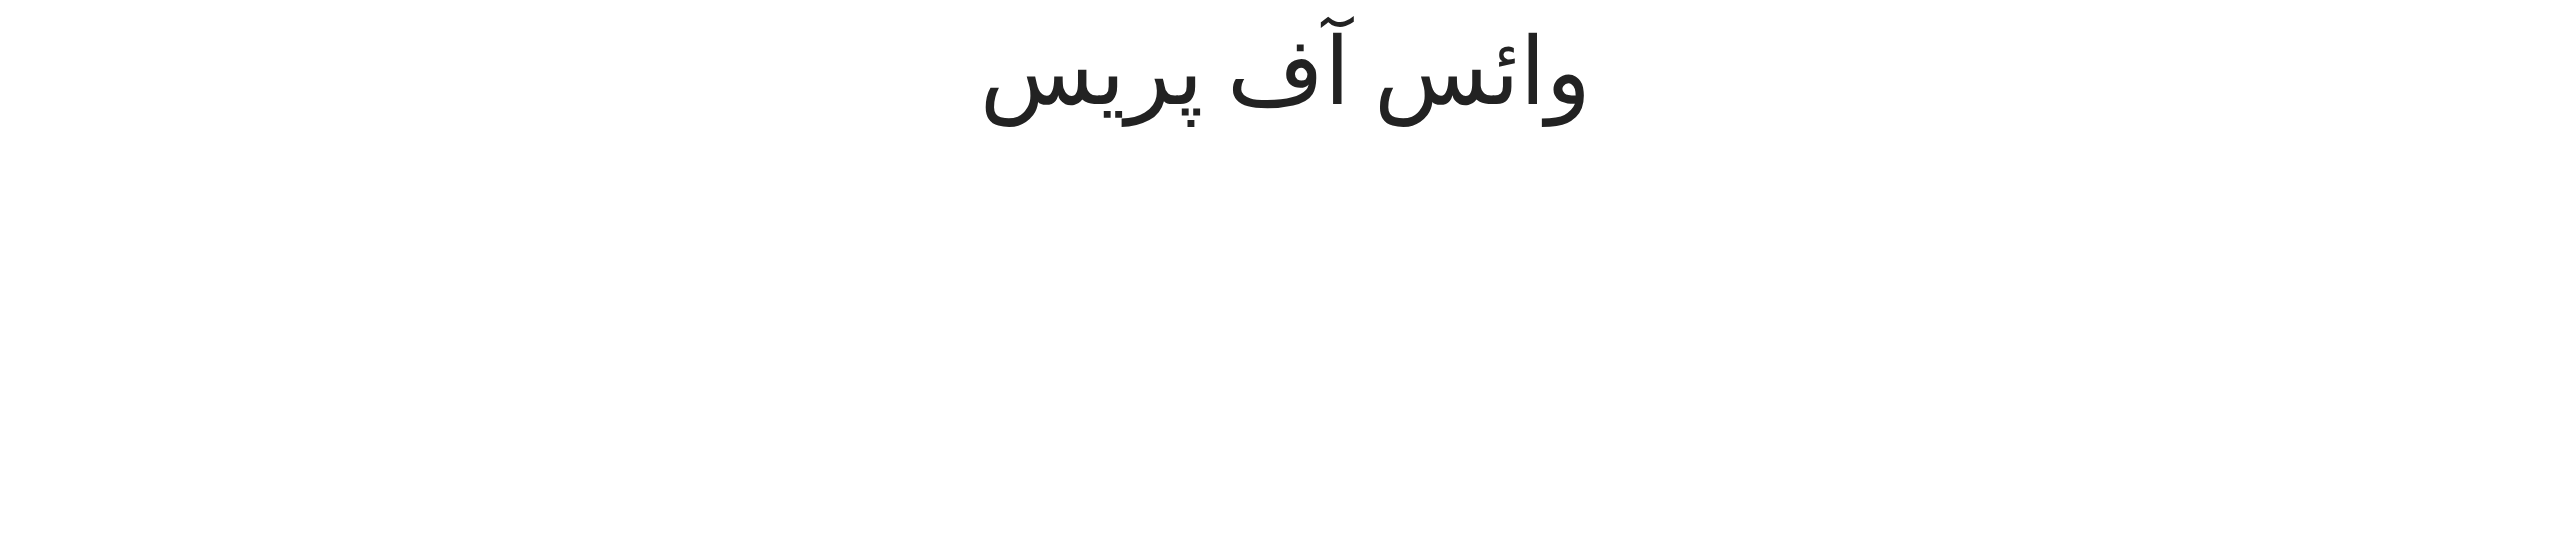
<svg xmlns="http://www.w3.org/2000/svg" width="2572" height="534">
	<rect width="100%" height="100%" fill="#FFFFFF" />
	<text x="1591" y="104" word-spacing="-6" font-family="DejaVu Sans" font-size="93.75" direction="rtl" fill="#222222">وائس آف پریس</text>
</svg>
